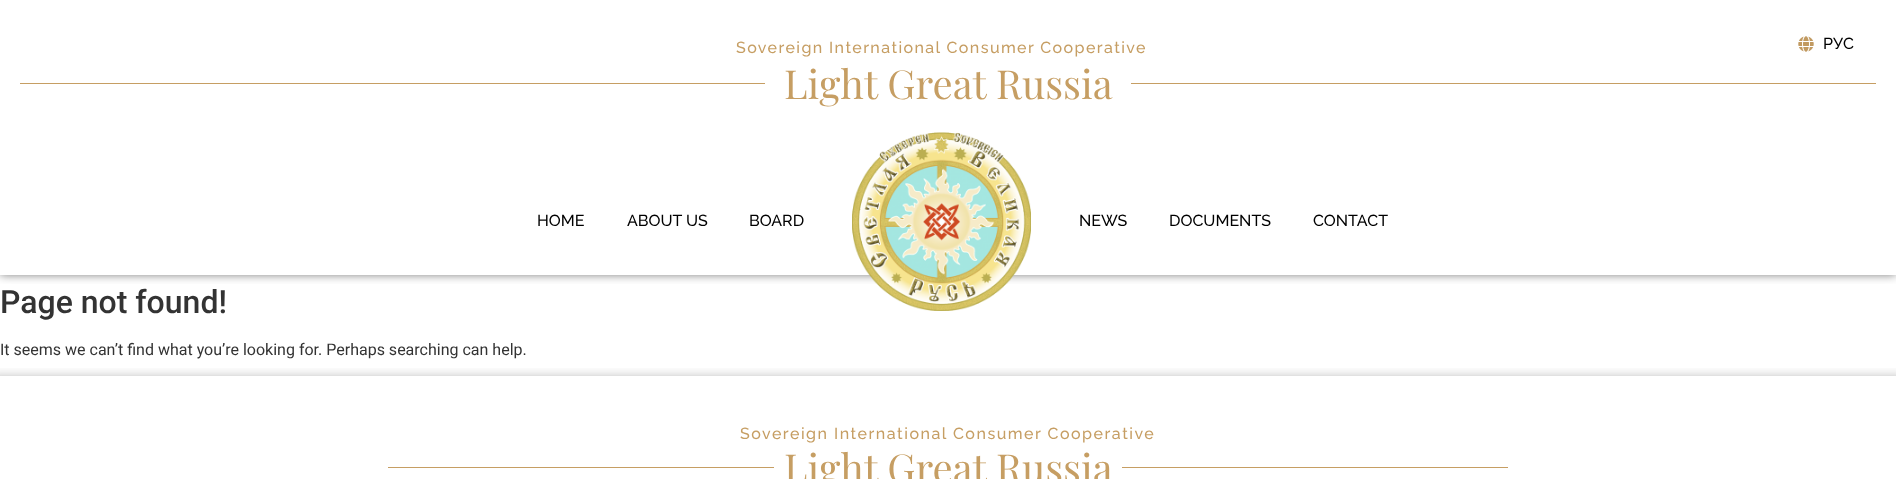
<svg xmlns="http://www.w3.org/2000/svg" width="1896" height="479">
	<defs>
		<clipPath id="clip1"><rect x="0" y="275" width="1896" height="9" /></clipPath>
		<clipPath id="clip2"><rect x="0" y="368" width="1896" height="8" /></clipPath>
	</defs>
	<rect width="100%" height="100%" fill="#FFFFFF" />
	<g clip-path="url(#clip1)">
		<rect x="0" y="0" width="1896" height="275" fill="#000000" fill-opacity="0.5" filter="blur(5px)" />
	</g>
	<text x="736" y="53" font-family="Raleway" font-size="16" font-weight="500" letter-spacing="1.4" fill="#C69E63">Sovereign International Consumer Cooperative</text>
	<image x="1798" y="36" width="16" height="16" href="assets/img1.png" />
	<text x="1823" y="49" font-family="Raleway" font-size="16" font-weight="500" fill="#000000">РУС</text>
	<rect x="20" y="83" width="745" height="1" fill="#C69E63" />
	<text x="784" y="99" font-family="Playfair Display" font-size="40" fill="#C69E63">Light Great Russia</text>
	<rect x="1131" y="83" width="745" height="1" fill="#C69E63" />
	<g font-family="Raleway" font-size="16" font-weight="500" fill="#000000">
		<text x="537" y="226">HOME</text>
		<text x="627" y="226">ABOUT US</text>
		<text x="749" y="226">BOARD</text>
	</g>
	<image x="852" y="132" width="179" height="179" href="assets/img2.png" />
	<g font-family="Raleway" font-size="16" font-weight="500" fill="#000000">
		<text x="1079" y="226">NEWS</text>
		<text x="1169" y="226">DOCUMENTS</text>
		<text x="1313" y="226">CONTACT</text>
	</g>
	<text x="0" y="313" font-family="Roboto" font-size="32" font-weight="500" fill="#333333">Page not found!</text>
	<text x="0" y="355" font-family="Roboto" font-size="16" fill="#333333">It seems we can’t find what you’re looking for. Perhaps searching can help.</text>
	<g clip-path="url(#clip2)">
		<rect x="-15" y="381" width="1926" height="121" fill="#000000" fill-opacity="0.5" filter="blur(7.5px)" />
	</g>
	<text x="740" y="439" font-family="Raleway" font-size="16" font-weight="500" letter-spacing="1.5" fill="#C69E63">Sovereign International Consumer Cooperative</text>
	<rect x="388" y="467" width="386" height="1" fill="#C69E63" />
	<text x="784" y="483" font-family="Playfair Display" font-size="40" fill="#C69E63">Light Great Russia</text>
	<rect x="1122" y="467" width="386" height="1" fill="#C69E63" />
</svg>
